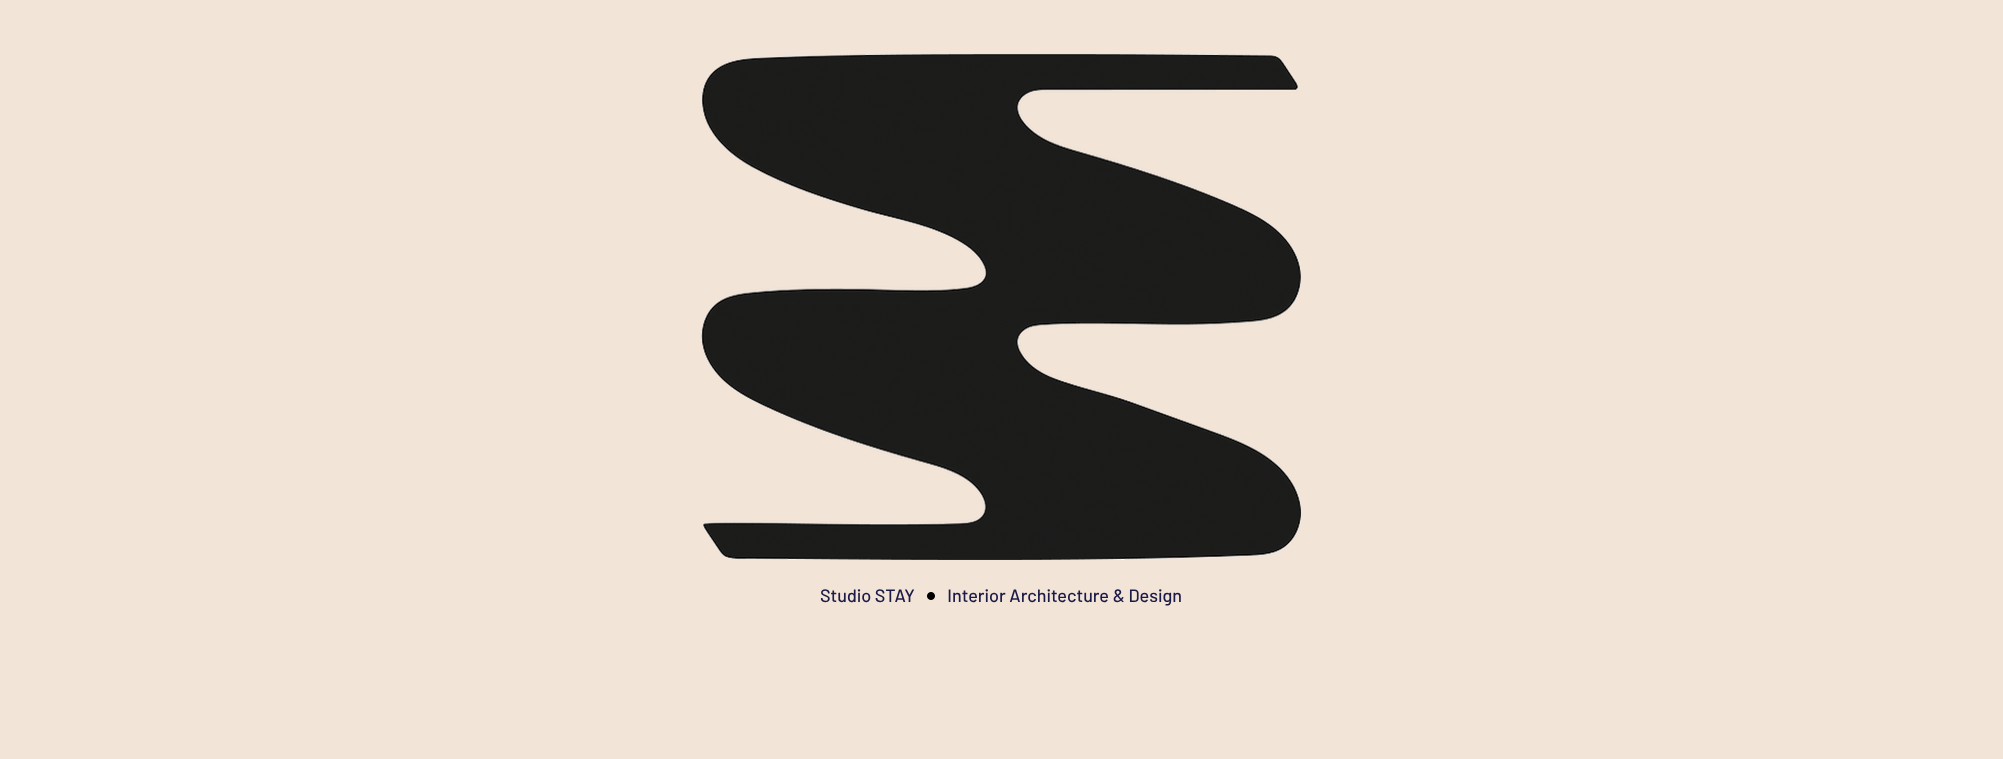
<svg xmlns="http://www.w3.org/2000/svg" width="2003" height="759">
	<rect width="100%" height="100%" fill="#F3E4D8" />
	<image x="701" y="54" width="600" height="506" href="assets/img1.png" />
	<text x="820" y="602" font-family="Barlow" font-size="18" font-weight="500" fill="#1B1B47" xml:space="preserve">Studio STAY         Interior Architecture &amp; Design</text>
	<image x="927" y="592" width="8" height="8" href="assets/img2.png" />
</svg>
